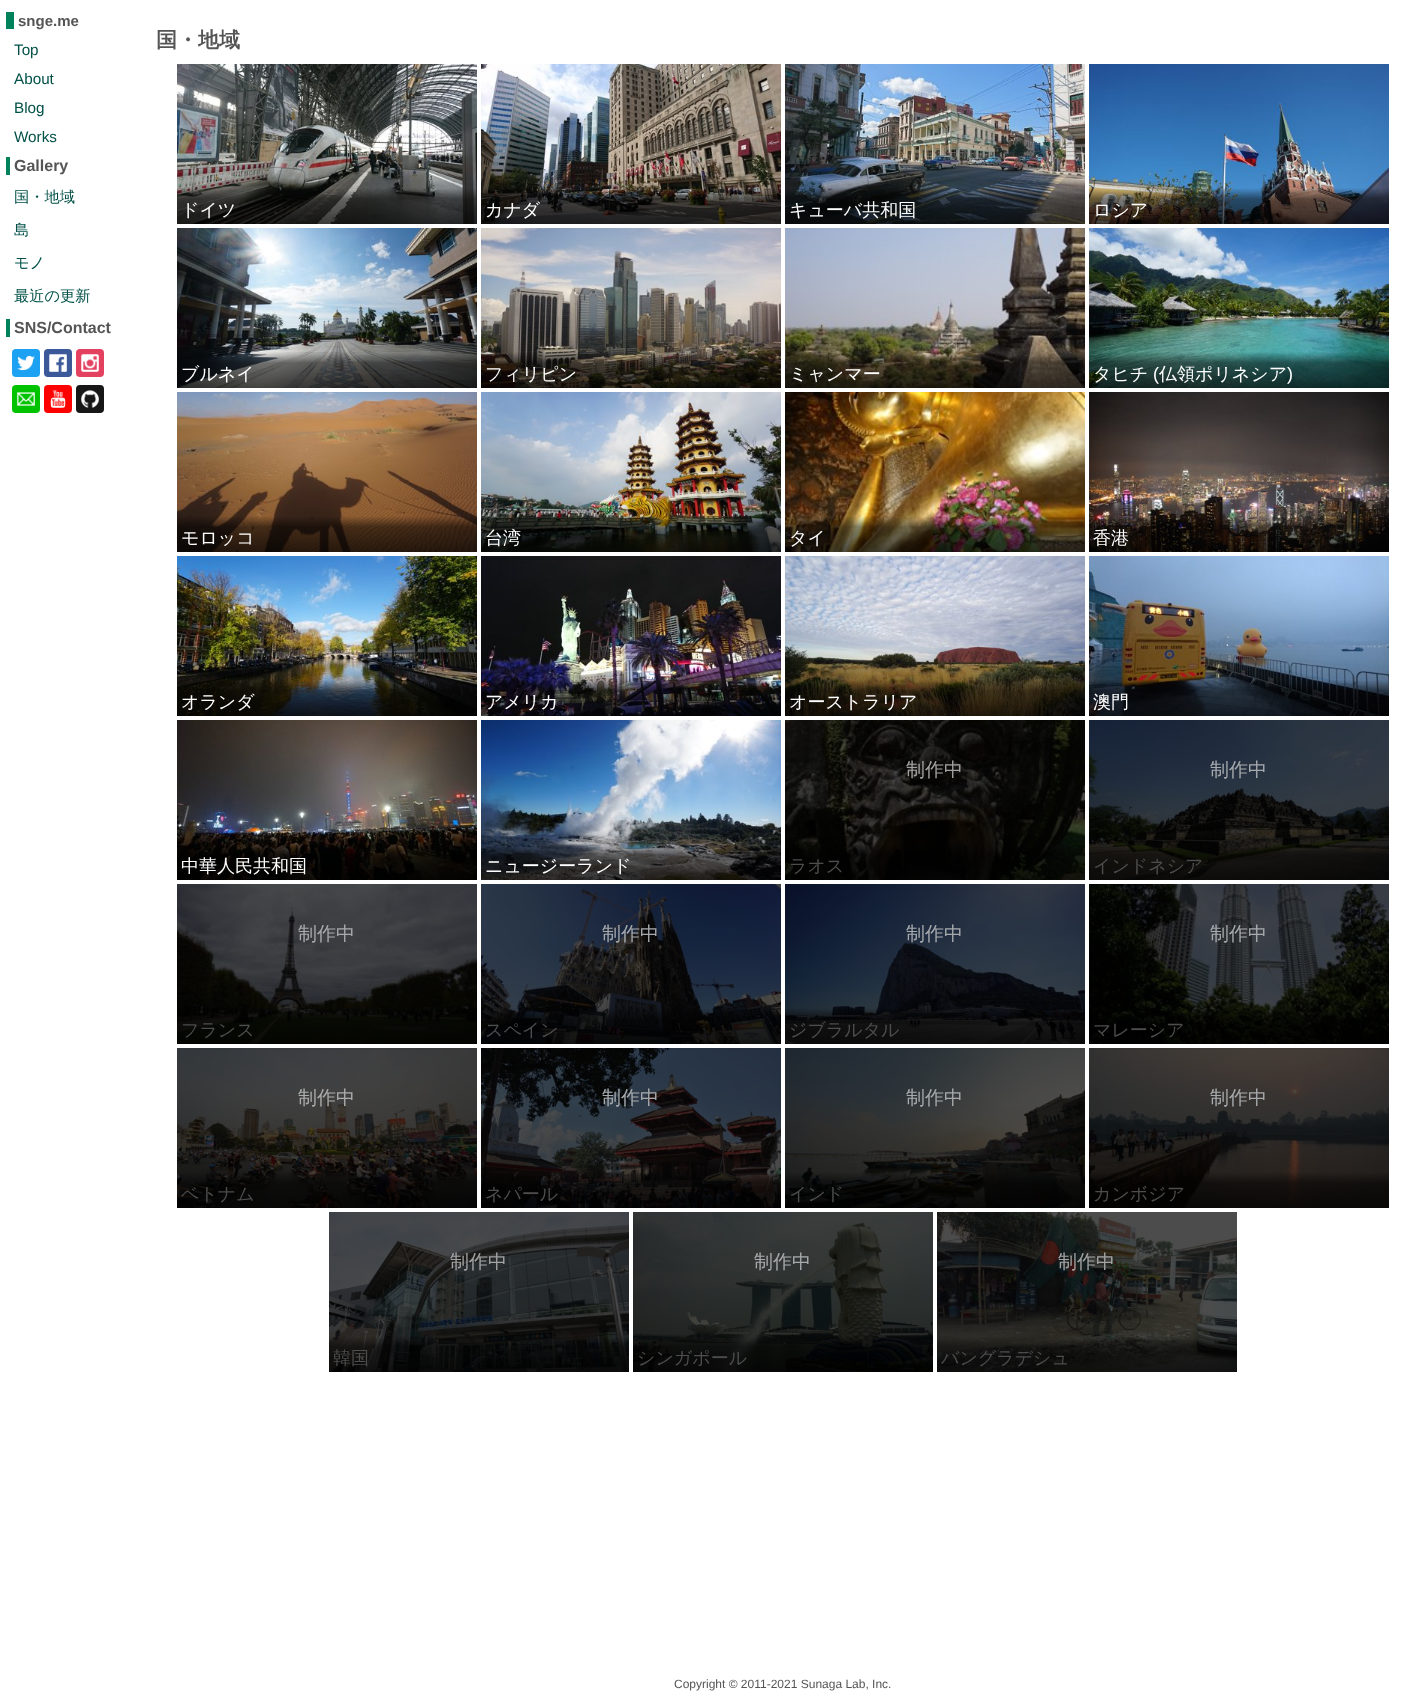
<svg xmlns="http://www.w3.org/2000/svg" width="1422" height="1704">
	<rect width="100%" height="100%" fill="#FFFFFF" />
	<rect x="6" y="12" width="8" height="17" fill="#00825D" />
	<text x="18" y="26" font-family="Liberation Sans" font-size="15" font-weight="700" fill="#555555">snge.me</text>
	<g font-family="Liberation Sans" font-size="15.25" fill="#005048">
		<text x="14" y="55">Top</text>
		<text x="14" y="84">About</text>
		<text x="14" y="113">Blog</text>
		<text x="14" y="142">Works</text>
	</g>
	<rect x="6" y="157" width="4" height="18" fill="#00825D" />
	<text x="14" y="171" font-family="Liberation Sans" font-size="16" font-weight="700" fill="#555555">Gallery</text>
	<g font-family="WenQuanYi Zen Hei" font-size="15.25" font-weight="500" fill="#005048">
		<text x="14" y="202">国・地域</text>
		<text x="14" y="235">島</text>
		<text x="14" y="268">モノ</text>
		<text x="14" y="301">最近の更新</text>
	</g>
	<rect x="6" y="319" width="4" height="18" fill="#00825D" />
	<text x="14" y="333" font-family="Liberation Sans" font-size="16" font-weight="700" fill="#555555">SNS/Contact</text>
	<rect x="12" y="349" width="28" height="28" rx="4" fill="#1DA1F2" />
	<image x="17" y="355" width="18" height="16" href="assets/img1.png" />
	<rect x="44" y="349" width="28" height="28" rx="4" fill="#3B5998" />
	<image x="49" y="354" width="18" height="18" href="assets/img2.png" />
	<rect x="76" y="349" width="28" height="28" rx="4" fill="#E4405F" />
	<image x="81" y="354" width="18" height="18" href="assets/img3.png" />
	<rect x="12" y="385" width="28" height="28" rx="4" fill="#00C300" />
	<image x="17" y="392" width="18" height="14" href="assets/img4.png" />
	<rect x="44" y="385" width="28" height="28" rx="4" fill="#FF0000" />
	<image x="50" y="390" width="16" height="18" href="assets/img5.png" />
	<rect x="76" y="385" width="28" height="28" rx="4" fill="#181717" />
	<image x="81" y="390" width="18" height="18" href="assets/img6.png" />
	<text x="156" y="47" font-family="WenQuanYi Zen Hei" font-size="21" font-weight="700" fill="#555555">国・地域</text>
	<image x="177" y="64" width="300" height="160" href="assets/img7.png" />
	<text x="181" y="216" font-family="WenQuanYi Zen Hei" font-size="18" font-weight="500" fill="#FFFFFF">ドイツ</text>
	<image x="481" y="64" width="300" height="160" href="assets/img8.png" />
	<text x="485" y="216" font-family="WenQuanYi Zen Hei" font-size="18" font-weight="500" fill="#FFFFFF">カナダ</text>
	<image x="785" y="64" width="300" height="160" href="assets/img9.png" />
	<text x="789" y="216" font-family="WenQuanYi Zen Hei" font-size="18" font-weight="500" fill="#FFFFFF">キューバ共和国</text>
	<image x="1089" y="64" width="300" height="160" href="assets/img10.png" />
	<text x="1093" y="216" font-family="WenQuanYi Zen Hei" font-size="18" font-weight="500" fill="#FFFFFF">ロシア</text>
	<image x="177" y="228" width="300" height="160" href="assets/img11.png" />
	<text x="181" y="380" font-family="WenQuanYi Zen Hei" font-size="18" font-weight="500" fill="#FFFFFF">ブルネイ</text>
	<image x="481" y="228" width="300" height="160" href="assets/img12.png" />
	<text x="485" y="380" font-family="WenQuanYi Zen Hei" font-size="18" font-weight="500" fill="#FFFFFF">フィリピン</text>
	<image x="785" y="228" width="300" height="160" href="assets/img13.png" />
	<text x="789" y="380" font-family="WenQuanYi Zen Hei" font-size="18" font-weight="500" fill="#FFFFFF">ミャンマー</text>
	<image x="1089" y="228" width="300" height="160" href="assets/img14.png" />
	<text x="1093" y="380" font-family="WenQuanYi Zen Hei" font-size="18" font-weight="500" fill="#FFFFFF">タヒチ</text>
	<text x="1153" y="380" font-family="Liberation Sans" font-size="18" fill="#FFFFFF">(</text>
	<text x="1159" y="380" font-family="WenQuanYi Zen Hei" font-size="18" font-weight="500" fill="#FFFFFF">仏領ポリネシア</text>
	<text x="1287" y="380" font-family="Liberation Sans" font-size="18" fill="#FFFFFF">)</text>
	<image x="177" y="392" width="300" height="160" href="assets/img15.png" />
	<text x="181" y="544" font-family="WenQuanYi Zen Hei" font-size="18" font-weight="500" fill="#FFFFFF">モロッコ</text>
	<image x="481" y="392" width="300" height="160" href="assets/img16.png" />
	<text x="485" y="544" font-family="WenQuanYi Zen Hei" font-size="18" font-weight="500" fill="#FFFFFF">台湾</text>
	<image x="785" y="392" width="300" height="160" href="assets/img17.png" />
	<text x="789" y="544" font-family="WenQuanYi Zen Hei" font-size="18" font-weight="500" fill="#FFFFFF">タイ</text>
	<image x="1089" y="392" width="300" height="160" href="assets/img18.png" />
	<text x="1093" y="544" font-family="WenQuanYi Zen Hei" font-size="18" font-weight="500" fill="#FFFFFF">香港</text>
	<image x="177" y="556" width="300" height="160" href="assets/img19.png" />
	<text x="181" y="708" font-family="WenQuanYi Zen Hei" font-size="18" font-weight="500" fill="#FFFFFF">オランダ</text>
	<image x="481" y="556" width="300" height="160" href="assets/img20.png" />
	<text x="485" y="708" font-family="WenQuanYi Zen Hei" font-size="18" font-weight="500" fill="#FFFFFF">アメリカ</text>
	<image x="785" y="556" width="300" height="160" href="assets/img21.png" />
	<text x="789" y="708" font-family="WenQuanYi Zen Hei" font-size="18" font-weight="500" fill="#FFFFFF">オーストラリア</text>
	<image x="1089" y="556" width="300" height="160" href="assets/img22.png" />
	<text x="1093" y="708" font-family="WenQuanYi Zen Hei" font-size="18" font-weight="500" fill="#FFFFFF">澳門</text>
	<image x="177" y="720" width="300" height="160" href="assets/img23.png" />
	<text x="181" y="872" font-family="WenQuanYi Zen Hei" font-size="18" font-weight="500" fill="#FFFFFF">中華人民共和国</text>
	<image x="481" y="720" width="300" height="160" href="assets/img24.png" />
	<text x="485" y="872" font-family="WenQuanYi Zen Hei" font-size="18" font-weight="500" fill="#FFFFFF">ニュージーランド</text>
	<image x="785" y="720" width="300" height="160" href="assets/img25.png" />
	<text x="906" y="776" font-family="WenQuanYi Zen Hei" font-size="19" font-weight="500" fill="#A3A3A3">制作中</text>
	<text x="789" y="872" font-family="WenQuanYi Zen Hei" font-size="18" font-weight="500" fill="#4D4D4D">ラオス</text>
	<image x="1089" y="720" width="300" height="160" href="assets/img26.png" />
	<text x="1210" y="776" font-family="WenQuanYi Zen Hei" font-size="19" font-weight="500" fill="#A7AAAD">制作中</text>
	<text x="1093" y="872" font-family="WenQuanYi Zen Hei" font-size="18" font-weight="500" fill="#4D4D4D">インドネシア</text>
	<image x="177" y="884" width="300" height="160" href="assets/img27.png" />
	<text x="298" y="940" font-family="WenQuanYi Zen Hei" font-size="19" font-weight="500" fill="#A7AAAD">制作中</text>
	<text x="181" y="1036" font-family="WenQuanYi Zen Hei" font-size="18" font-weight="500" fill="#4D4D4D">フランス</text>
	<image x="481" y="884" width="300" height="160" href="assets/img28.png" />
	<text x="602" y="940" font-family="WenQuanYi Zen Hei" font-size="19" font-weight="500" fill="#A7AAAD">制作中</text>
	<text x="485" y="1036" font-family="WenQuanYi Zen Hei" font-size="18" font-weight="500" fill="#4D4D4D">スペイン</text>
	<image x="785" y="884" width="300" height="160" href="assets/img29.png" />
	<text x="906" y="940" font-family="WenQuanYi Zen Hei" font-size="19" font-weight="500" fill="#A7AAAD">制作中</text>
	<text x="789" y="1036" font-family="WenQuanYi Zen Hei" font-size="18" font-weight="500" fill="#4D4D4D">ジブラルタル</text>
	<image x="1089" y="884" width="300" height="160" href="assets/img30.png" />
	<text x="1210" y="940" font-family="WenQuanYi Zen Hei" font-size="19" font-weight="500" fill="#A7AAAD">制作中</text>
	<text x="1093" y="1036" font-family="WenQuanYi Zen Hei" font-size="18" font-weight="500" fill="#4D4D4D">マレーシア</text>
	<image x="177" y="1048" width="300" height="160" href="assets/img31.png" />
	<text x="298" y="1104" font-family="WenQuanYi Zen Hei" font-size="19" font-weight="500" fill="#ADACAC">制作中</text>
	<text x="181" y="1200" font-family="WenQuanYi Zen Hei" font-size="18" font-weight="500" fill="#4D4D4D">ベトナム</text>
	<image x="481" y="1048" width="300" height="160" href="assets/img32.png" />
	<text x="602" y="1104" font-family="WenQuanYi Zen Hei" font-size="19" font-weight="500" fill="#A7AAAD">制作中</text>
	<text x="485" y="1200" font-family="WenQuanYi Zen Hei" font-size="18" font-weight="500" fill="#4D4D4D">ネパール</text>
	<image x="785" y="1048" width="300" height="160" href="assets/img33.png" />
	<text x="906" y="1104" font-family="WenQuanYi Zen Hei" font-size="19" font-weight="500" fill="#A7AAAD">制作中</text>
	<text x="789" y="1200" font-family="WenQuanYi Zen Hei" font-size="18" font-weight="500" fill="#4D4D4D">インド</text>
	<image x="1089" y="1048" width="300" height="160" href="assets/img34.png" />
	<text x="1210" y="1104" font-family="WenQuanYi Zen Hei" font-size="19" font-weight="500" fill="#A7AAAD">制作中</text>
	<text x="1093" y="1200" font-family="WenQuanYi Zen Hei" font-size="18" font-weight="500" fill="#4D4D4D">カンボジア</text>
	<image x="329" y="1212" width="300" height="160" href="assets/img35.png" />
	<text x="450" y="1268" font-family="WenQuanYi Zen Hei" font-size="19" font-weight="500" fill="#A3A3A3">制作中</text>
	<text x="333" y="1364" font-family="WenQuanYi Zen Hei" font-size="18" font-weight="500" fill="#4D4D4D">韓国</text>
	<image x="633" y="1212" width="300" height="160" href="assets/img36.png" />
	<text x="754" y="1268" font-family="WenQuanYi Zen Hei" font-size="19" font-weight="500" fill="#A7AAAD">制作中</text>
	<text x="637" y="1364" font-family="WenQuanYi Zen Hei" font-size="18" font-weight="500" fill="#4D4D4D">シンガポール</text>
	<image x="937" y="1212" width="300" height="160" href="assets/img37.png" />
	<text x="1058" y="1268" font-family="WenQuanYi Zen Hei" font-size="19" font-weight="500" fill="#A3A3A3">制作中</text>
	<text x="941" y="1364" font-family="WenQuanYi Zen Hei" font-size="18" font-weight="500" fill="#4D4D4D">バングラデシュ</text>
	<text x="674" y="1688" font-family="Liberation Sans" font-size="12" fill="#555555">Copyright © 2011-2021 Sunaga Lab, Inc.</text>
</svg>
